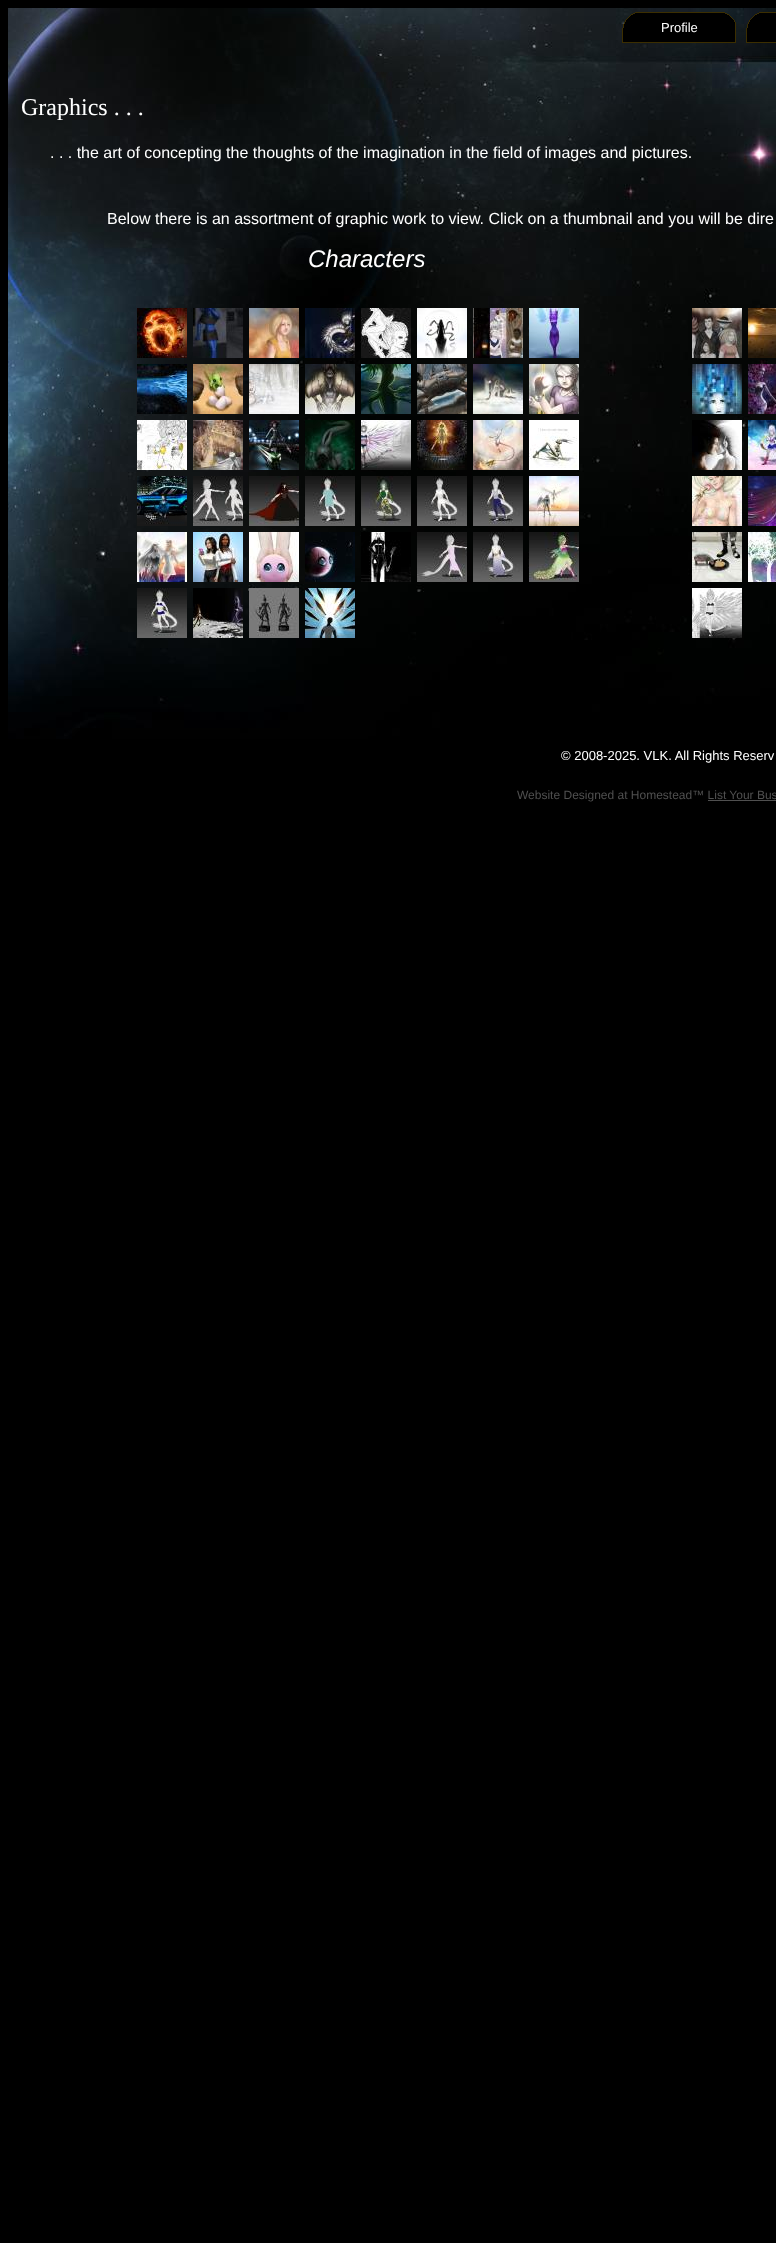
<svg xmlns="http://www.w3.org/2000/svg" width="776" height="2243">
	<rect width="100%" height="100%" fill="#000000" />
	<image x="8" y="8" width="768" height="731" href="assets/img1.png" />
	<image x="622" y="12" width="114" height="31" href="assets/img2.png" />
	<text x="661" y="32" font-family="Liberation Sans" font-size="13" fill="#FFFFFF">Profile</text>
	<image x="746" y="12" width="30" height="31" href="assets/img3.png" />
	<text x="21" y="115" font-family="Liberation Serif" font-size="24" fill="#FFFFFF">Graphics . . .</text>
	<g font-family="Liberation Sans" font-size="16" fill="#FFFFFF">
		<text x="50" y="158">. . . the art of concepting the thoughts of the imagination in the field of images and pictures.</text>
		<text x="107" y="224">Below there is an assortment of graphic work to view. Click on a thumbnail and you will be dire</text>
	</g>
	<text x="308" y="267" font-family="Liberation Sans" font-size="24" font-style="italic" fill="#FFFFFF">Characters</text>
	<image x="137" y="308" width="50" height="50" href="assets/img4.png" />
	<image x="193" y="308" width="50" height="50" href="assets/img5.png" />
	<image x="249" y="308" width="50" height="50" href="assets/img6.png" />
	<image x="305" y="308" width="50" height="50" href="assets/img7.png" />
	<image x="361" y="308" width="50" height="50" href="assets/img8.png" />
	<image x="417" y="308" width="50" height="50" href="assets/img9.png" />
	<image x="473" y="308" width="50" height="50" href="assets/img10.png" />
	<image x="529" y="308" width="50" height="50" href="assets/img11.png" />
	<image x="137" y="364" width="50" height="50" href="assets/img12.png" />
	<image x="193" y="364" width="50" height="50" href="assets/img13.png" />
	<image x="249" y="364" width="50" height="50" href="assets/img14.png" />
	<image x="305" y="364" width="50" height="50" href="assets/img15.png" />
	<image x="361" y="364" width="50" height="50" href="assets/img16.png" />
	<image x="417" y="364" width="50" height="50" href="assets/img17.png" />
	<image x="473" y="364" width="50" height="50" href="assets/img18.png" />
	<image x="529" y="364" width="50" height="50" href="assets/img19.png" />
	<image x="137" y="420" width="50" height="50" href="assets/img20.png" />
	<image x="193" y="420" width="50" height="50" href="assets/img21.png" />
	<image x="249" y="420" width="50" height="50" href="assets/img22.png" />
	<image x="305" y="420" width="50" height="50" href="assets/img23.png" />
	<image x="361" y="420" width="50" height="50" href="assets/img24.png" />
	<image x="417" y="420" width="50" height="50" href="assets/img25.png" />
	<image x="473" y="420" width="50" height="50" href="assets/img26.png" />
	<image x="529" y="420" width="50" height="50" href="assets/img27.png" />
	<image x="137" y="476" width="50" height="50" href="assets/img28.png" />
	<image x="193" y="476" width="50" height="50" href="assets/img29.png" />
	<image x="249" y="476" width="50" height="50" href="assets/img30.png" />
	<image x="305" y="476" width="50" height="50" href="assets/img31.png" />
	<image x="361" y="476" width="50" height="50" href="assets/img32.png" />
	<image x="417" y="476" width="50" height="50" href="assets/img33.png" />
	<image x="473" y="476" width="50" height="50" href="assets/img34.png" />
	<image x="529" y="476" width="50" height="50" href="assets/img35.png" />
	<image x="137" y="532" width="50" height="50" href="assets/img36.png" />
	<image x="193" y="532" width="50" height="50" href="assets/img37.png" />
	<image x="249" y="532" width="50" height="50" href="assets/img38.png" />
	<image x="305" y="532" width="50" height="50" href="assets/img39.png" />
	<image x="361" y="532" width="50" height="50" href="assets/img40.png" />
	<image x="417" y="532" width="50" height="50" href="assets/img41.png" />
	<image x="473" y="532" width="50" height="50" href="assets/img42.png" />
	<image x="529" y="532" width="50" height="50" href="assets/img43.png" />
	<image x="137" y="588" width="50" height="50" href="assets/img44.png" />
	<image x="193" y="588" width="50" height="50" href="assets/img45.png" />
	<image x="249" y="588" width="50" height="50" href="assets/img46.png" />
	<image x="305" y="588" width="50" height="50" href="assets/img47.png" />
	<image x="692" y="308" width="50" height="50" href="assets/img48.png" />
	<image x="748" y="308" width="28" height="50" href="assets/img49.png" />
	<image x="692" y="364" width="50" height="50" href="assets/img50.png" />
	<image x="748" y="364" width="28" height="50" href="assets/img51.png" />
	<image x="692" y="420" width="50" height="50" href="assets/img52.png" />
	<image x="748" y="420" width="28" height="50" href="assets/img53.png" />
	<image x="692" y="476" width="50" height="50" href="assets/img54.png" />
	<image x="748" y="476" width="28" height="50" href="assets/img55.png" />
	<image x="692" y="532" width="50" height="50" href="assets/img56.png" />
	<image x="748" y="532" width="28" height="50" href="assets/img57.png" />
	<image x="692" y="588" width="50" height="50" href="assets/img58.png" />
	<text x="561" y="760" font-family="Liberation Sans" font-size="13" fill="#FFFFFF">© 2008-2025. VLK. All Rights Reserv</text>
	<text x="517" y="799" font-family="Liberation Sans" font-size="12" fill="#505050">Website Designed at Homestead™ List Your Bus</text>
	<rect x="708" y="800" width="68" height="1" fill="#505050" />
</svg>
